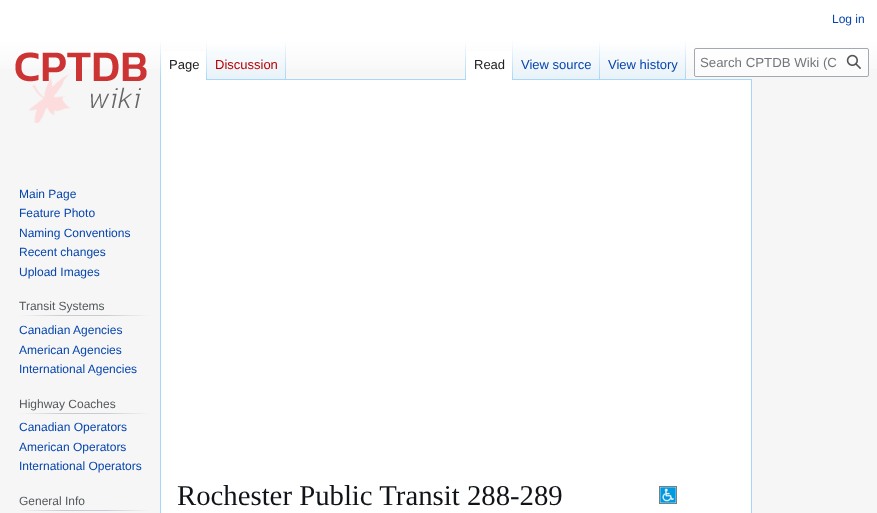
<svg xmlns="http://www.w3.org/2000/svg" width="877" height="513">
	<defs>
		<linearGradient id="g1" gradientUnits="userSpaceOnUse" x1="439" y1="0" x2="439" y2="80"><stop offset="0.5" stop-color="#FFFFFF" /><stop offset="1" stop-color="#F6F6F6" /></linearGradient>
		<linearGradient id="g2" gradientUnits="userSpaceOnUse" x1="161" y1="40" x2="161" y2="80"><stop offset="0" stop-color="#A7D7F9" stop-opacity="0" /><stop offset="1" stop-color="#A7D7F9" /></linearGradient>
		<linearGradient id="g3" gradientUnits="userSpaceOnUse" x1="207" y1="40" x2="207" y2="80"><stop offset="0" stop-color="#FFFFFF" /><stop offset="1" stop-color="#A7D7F9" /></linearGradient>
		<linearGradient id="g4" gradientUnits="userSpaceOnUse" x1="247" y1="80" x2="247" y2="40"><stop offset="0" stop-color="#77C1F6" /><stop offset="0.03" stop-color="#E8F2F8" /><stop offset="1" stop-color="#FFFFFF" /></linearGradient>
		<linearGradient id="g5" gradientUnits="userSpaceOnUse" x1="286" y1="40" x2="286" y2="80"><stop offset="0" stop-color="#A7D7F9" stop-opacity="0" /><stop offset="1" stop-color="#A7D7F9" /></linearGradient>
		<linearGradient id="g6" gradientUnits="userSpaceOnUse" x1="466" y1="40" x2="466" y2="80"><stop offset="0" stop-color="#A7D7F9" stop-opacity="0" /><stop offset="1" stop-color="#A7D7F9" /></linearGradient>
		<linearGradient id="g7" gradientUnits="userSpaceOnUse" x1="513" y1="40" x2="513" y2="80"><stop offset="0" stop-color="#FFFFFF" /><stop offset="1" stop-color="#A7D7F9" /></linearGradient>
		<linearGradient id="g8" gradientUnits="userSpaceOnUse" x1="557" y1="80" x2="557" y2="40"><stop offset="0" stop-color="#77C1F6" /><stop offset="0.03" stop-color="#E8F2F8" /><stop offset="1" stop-color="#FFFFFF" /></linearGradient>
		<linearGradient id="g9" gradientUnits="userSpaceOnUse" x1="600" y1="40" x2="600" y2="80"><stop offset="0" stop-color="#A7D7F9" stop-opacity="0" /><stop offset="1" stop-color="#A7D7F9" /></linearGradient>
		<linearGradient id="g10" gradientUnits="userSpaceOnUse" x1="643" y1="80" x2="643" y2="40"><stop offset="0" stop-color="#77C1F6" /><stop offset="0.03" stop-color="#E8F2F8" /><stop offset="1" stop-color="#FFFFFF" /></linearGradient>
		<linearGradient id="g11" gradientUnits="userSpaceOnUse" x1="686" y1="40" x2="686" y2="80"><stop offset="0" stop-color="#A7D7F9" stop-opacity="0" /><stop offset="1" stop-color="#A7D7F9" /></linearGradient>
		<linearGradient id="g12" gradientUnits="userSpaceOnUse" x1="19" y1="316" x2="150" y2="316"><stop offset="0" stop-color="#F6F6F6" /><stop offset="0.33" stop-color="#C8CCD1" /><stop offset="0.66" stop-color="#C8CCD1" /><stop offset="1" stop-color="#F6F6F6" /></linearGradient>
		<linearGradient id="g13" gradientUnits="userSpaceOnUse" x1="19" y1="414" x2="150" y2="414"><stop offset="0" stop-color="#F6F6F6" /><stop offset="0.33" stop-color="#C8CCD1" /><stop offset="0.66" stop-color="#C8CCD1" /><stop offset="1" stop-color="#F6F6F6" /></linearGradient>
		<linearGradient id="g14" gradientUnits="userSpaceOnUse" x1="19" y1="511" x2="150" y2="511"><stop offset="0" stop-color="#F6F6F6" /><stop offset="0.33" stop-color="#C8CCD1" /><stop offset="0.66" stop-color="#C8CCD1" /><stop offset="1" stop-color="#F6F6F6" /></linearGradient>
	</defs>
	<rect width="100%" height="100%" fill="#F6F6F6" />
	<rect x="0" y="0" width="877" height="69" fill="url(#g1)" />
	<text x="832" y="23" font-family="Liberation Sans" font-size="12" fill="#0645AD">Log in</text>
	<rect x="160.5" y="79.5" width="591" height="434" fill="#FFFFFF" stroke="#A7D7F9" />
	<rect x="160" y="40" width="1" height="40" fill="url(#g2)" />
	<rect x="161" y="51" width="45" height="29" fill="#FFFFFF" />
	<rect x="206" y="40" width="1" height="40" fill="url(#g3)" />
	<text x="169" y="69" font-family="Liberation Sans" font-size="13" fill="#202122">Page</text>
	<rect x="207" y="46" width="79" height="33" fill="url(#g4)" />
	<rect x="285" y="40" width="1" height="40" fill="url(#g5)" />
	<text x="215" y="69" font-family="Liberation Sans" font-size="13" fill="#BA0000">Discussion</text>
	<rect x="465" y="40" width="1" height="40" fill="url(#g6)" />
	<rect x="466" y="51" width="46" height="29" fill="#FFFFFF" />
	<rect x="512" y="40" width="1" height="40" fill="url(#g7)" />
	<text x="474" y="69" font-family="Liberation Sans" font-size="13" fill="#202122">Read</text>
	<rect x="513" y="46" width="87" height="33" fill="url(#g8)" />
	<rect x="599" y="40" width="1" height="40" fill="url(#g9)" />
	<text x="521" y="69" font-family="Liberation Sans" font-size="13" fill="#0645AD">View source</text>
	<rect x="600" y="46" width="86" height="33" fill="url(#g10)" />
	<rect x="685" y="40" width="1" height="40" fill="url(#g11)" />
	<text x="608" y="69" font-family="Liberation Sans" font-size="13" fill="#0645AD">View history</text>
	<rect x="694.5" y="48.5" width="174" height="28" rx="1.5" fill="#FFFFFF" fill-opacity="0.5" stroke="#A2A9B1" />
	<text x="700" y="67" font-family="Liberation Sans" font-size="13.25" fill="#72777D">Search CPTDB Wiki (C</text>
	<image x="846" y="54" width="15" height="15" href="assets/img1.png" />
	<image x="15" y="52" width="132" height="71" href="assets/img2.png" />
	<g font-family="Liberation Sans" font-size="12" fill="#0645AD">
		<text x="19" y="198">Main Page</text>
		<text x="19" y="217">Feature Photo</text>
		<text x="19" y="237">Naming Conventions</text>
		<text x="19" y="256">Recent changes</text>
		<text x="19" y="276">Upload Images</text>
	</g>
	<rect x="19" y="315" width="131" height="1" fill="url(#g12)" />
	<text x="19" y="310" font-family="Liberation Sans" font-size="12" fill="#54595D">Transit Systems</text>
	<g font-family="Liberation Sans" font-size="12" fill="#0645AD">
		<text x="19" y="334">Canadian Agencies</text>
		<text x="19" y="354">American Agencies</text>
		<text x="19" y="373">International Agencies</text>
	</g>
	<rect x="19" y="413" width="131" height="1" fill="url(#g13)" />
	<text x="19" y="408" font-family="Liberation Sans" font-size="12" fill="#54595D">Highway Coaches</text>
	<g font-family="Liberation Sans" font-size="12" fill="#0645AD">
		<text x="19" y="431">Canadian Operators</text>
		<text x="19" y="451">American Operators</text>
		<text x="19" y="470">International Operators</text>
	</g>
	<rect x="19" y="510" width="131" height="1" fill="url(#g14)" />
	<text x="19" y="505" font-family="Liberation Sans" font-size="12" fill="#54595D">General Info</text>
	<text x="177" y="505" font-family="Liberation Serif" font-size="28.75" fill="#101418">Rochester Public Transit 288-289</text>
	<image x="659" y="486" width="18" height="18" href="assets/img3.png" />
</svg>
